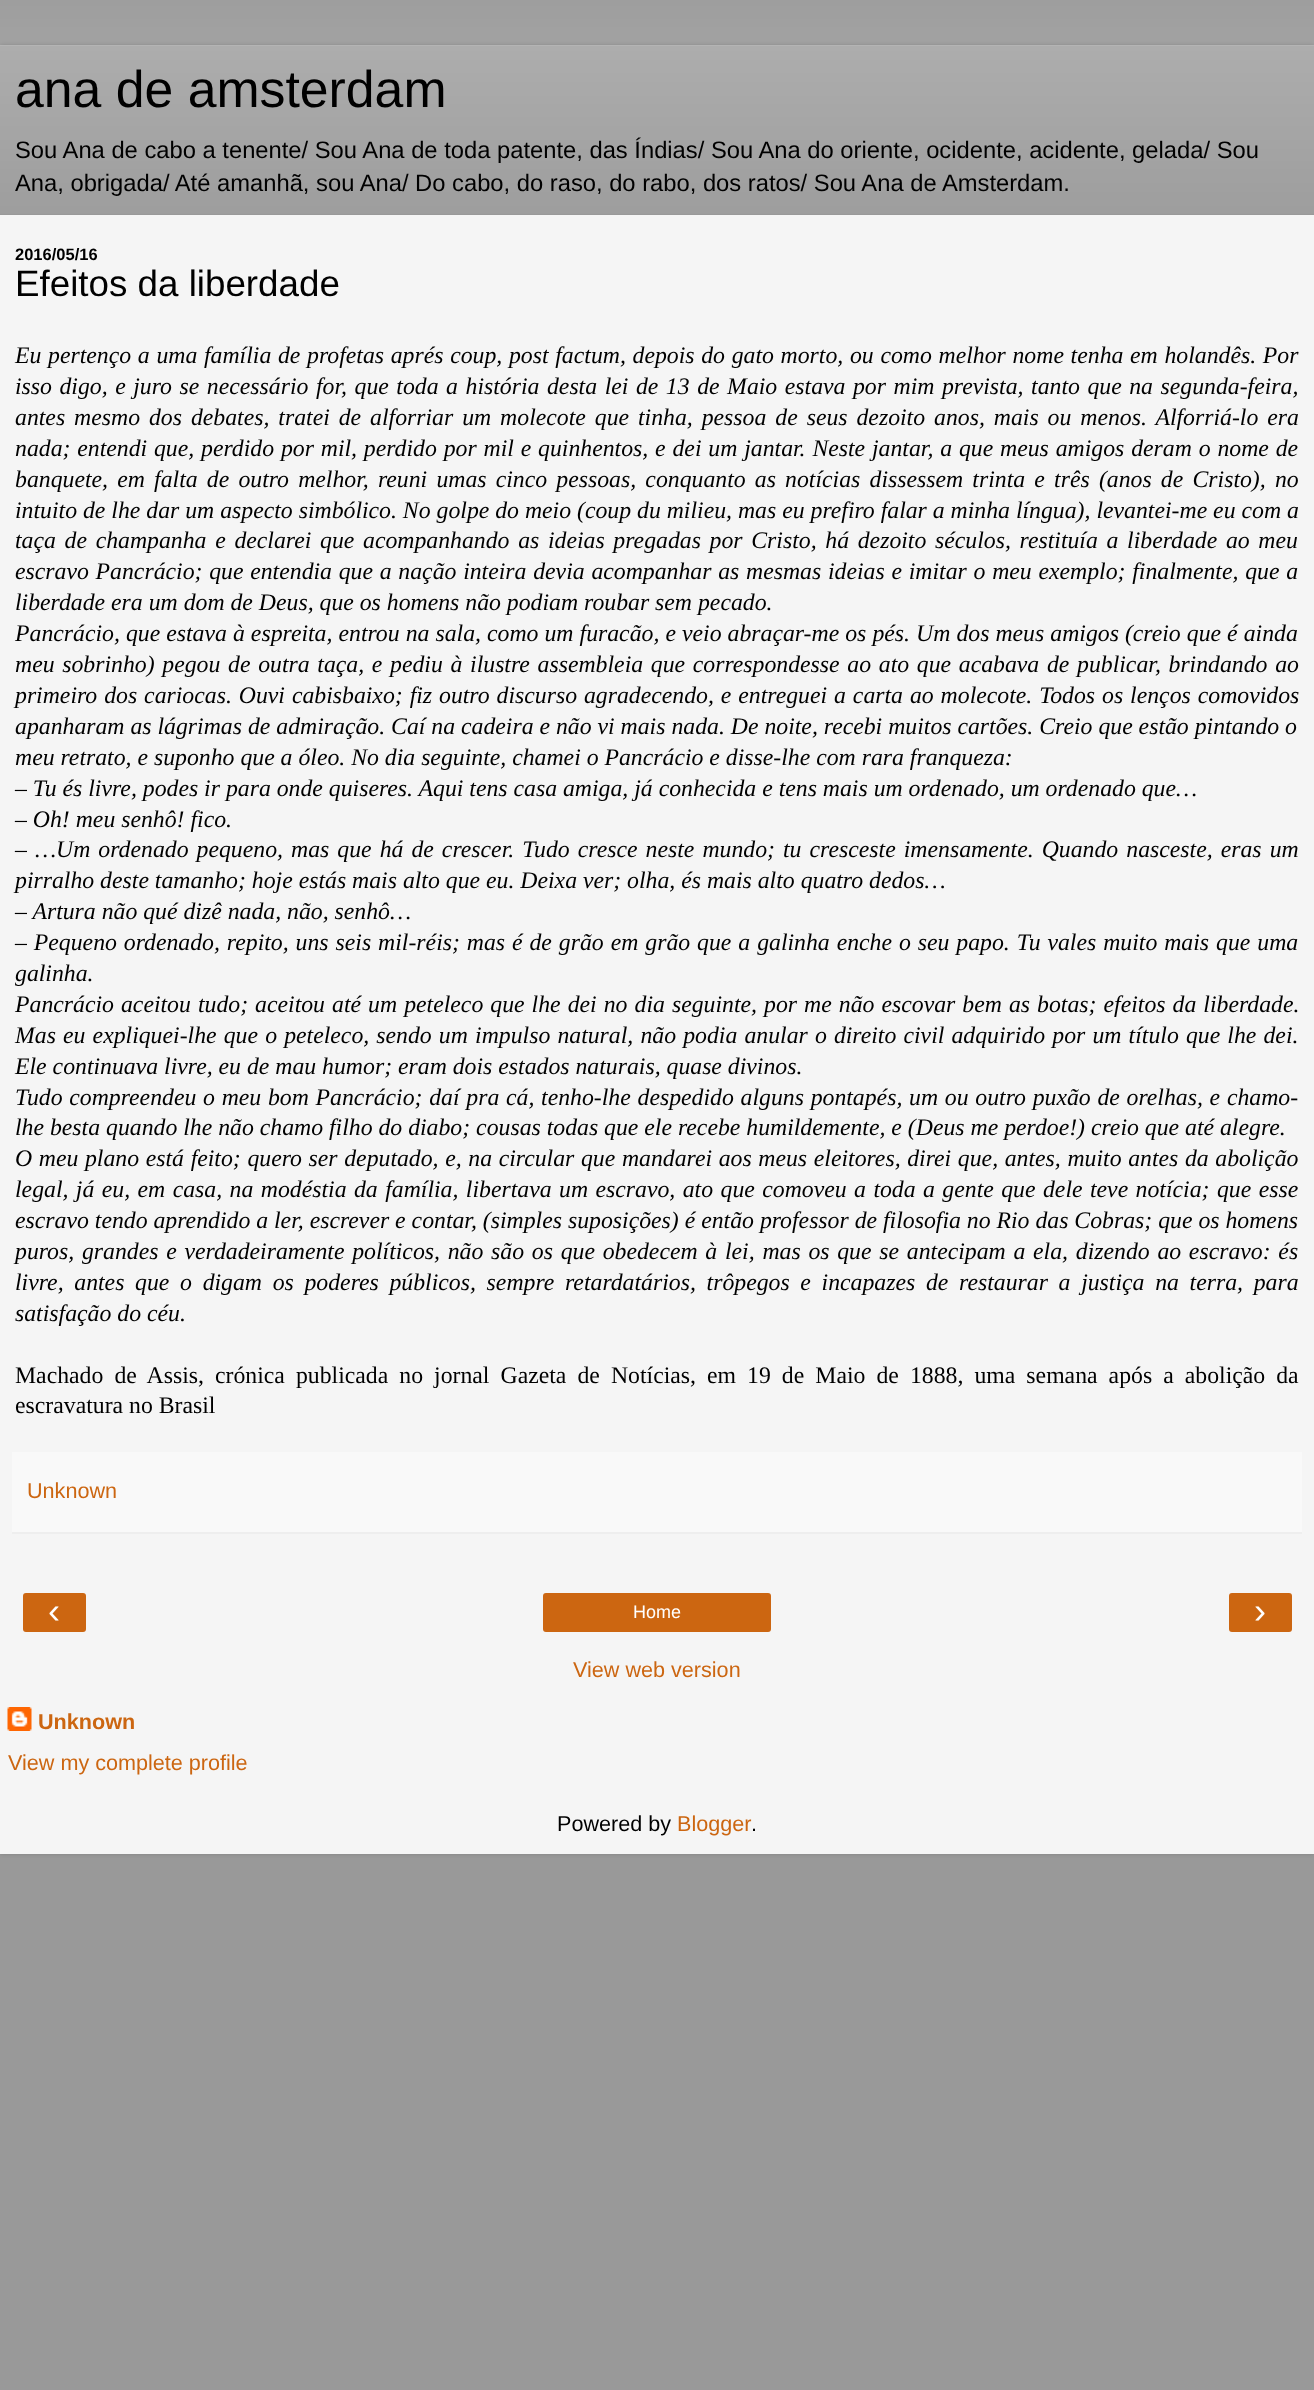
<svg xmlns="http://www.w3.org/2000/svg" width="1314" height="2390">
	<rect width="100%" height="100%" fill="#999999" />
	<image x="0" y="0" width="1314" height="45" href="assets/img1.png" />
	<rect x="0" y="45" width="1314" height="1809" fill="#000000" fill-opacity="0.15" filter="blur(2px)" />
	<rect x="0" y="215" width="1314" height="1639" fill="#F5F5F5" />
	<rect x="0" y="45" width="1314" height="170" fill="#999999" />
	<image x="0" y="45" width="1314" height="169" href="assets/img2.png" />
	<text x="15" y="107" font-family="Liberation Sans" font-size="51.75" fill="#000000">ana de amsterdam</text>
	<g font-family="Liberation Sans" font-size="23.75" fill="#000000">
		<text x="15" y="158">Sou Ana de cabo a tenente/ Sou Ana de toda patente, das Índias/ Sou Ana do oriente, ocidente, acidente, gelada/ Sou</text>
		<text x="15" y="191">Ana, obrigada/ Até amanhã, sou Ana/ Do cabo, do raso, do rabo, dos ratos/ Sou Ana de Amsterdam.</text>
	</g>
	<text x="15" y="260" font-family="Liberation Sans" font-size="16.5" font-weight="700" fill="#000000">2016/05/16</text>
	<text x="15" y="296" font-family="Liberation Sans" font-size="36.75" fill="#000000">Efeitos da liberdade</text>
	<g font-family="Liberation Serif" font-size="23.75" font-style="italic" fill="#000000">
		<text x="15" y="363" word-spacing="0.75">Eu pertenço a uma família de profetas aprés coup, post factum, depois do gato morto, ou como melhor nome tenha em holandês. Por</text>
		<text x="15" y="394" word-spacing="1.6">isso digo, e juro se necessário for, que toda a história desta lei de 13 de Maio estava por mim prevista, tanto que na segunda-feira,</text>
		<text x="15" y="425" word-spacing="3">antes mesmo dos debates, tratei de alforriar um molecote que tinha, pessoa de seus dezoito anos, mais ou menos. Alforriá-lo era</text>
		<text x="15" y="456" word-spacing="0.9">nada; entendi que, perdido por mil, perdido por mil e quinhentos, e dei um jantar. Neste jantar, a que meus amigos deram o nome de</text>
		<text x="15" y="487" word-spacing="3.25">banquete, em falta de outro melhor, reuni umas cinco pessoas, conquanto as notícias dissessem trinta e três (anos de Cristo), no</text>
		<text x="15" y="518">intuito de lhe dar um aspecto simbólico. No golpe do meio (coup du milieu, mas eu prefiro falar a minha língua), levantei-me eu com a</text>
		<text x="15" y="548" word-spacing="2.75">taça de champanha e declarei que acompanhando as ideias pregadas por Cristo, há dezoito séculos, restituía a liberdade ao meu</text>
		<text x="15" y="579" word-spacing="0.8">escravo Pancrácio; que entendia que a nação inteira devia acompanhar as mesmas ideias e imitar o meu exemplo; finalmente, que a</text>
		<text x="15" y="610">liberdade era um dom de Deus, que os homens não podiam roubar sem pecado.</text>
		<text x="15" y="641" word-spacing="0.1">Pancrácio, que estava à espreita, entrou na sala, como um furacão, e veio abraçar-me os pés. Um dos meus amigos (creio que é ainda</text>
		<text x="15" y="672" word-spacing="1.75">meu sobrinho) pegou de outra taça, e pediu à ilustre assembleia que correspondesse ao ato que acabava de publicar, brindando ao</text>
		<text x="15" y="703" word-spacing="1">primeiro dos cariocas. Ouvi cabisbaixo; fiz outro discurso agradecendo, e entreguei a carta ao molecote. Todos os lenços comovidos</text>
		<text x="15" y="734">apanharam as lágrimas de admiração. Caí na cadeira e não vi mais nada. De noite, recebi muitos cartões. Creio que estão pintando o</text>
		<text x="15" y="765">meu retrato, e suponho que a óleo. No dia seguinte, chamei o Pancrácio e disse-lhe com rara franqueza:</text>
		<text x="15" y="796">– Tu és livre, podes ir para onde quiseres. Aqui tens casa amiga, já conhecida e tens mais um ordenado, um ordenado que…</text>
		<text x="15" y="827">– Oh! meu senhô! fico.</text>
		<text x="15" y="857" word-spacing="2.1">– …Um ordenado pequeno, mas que há de crescer. Tudo cresce neste mundo; tu cresceste imensamente. Quando nasceste, eras um</text>
		<text x="15" y="888">pirralho deste tamanho; hoje estás mais alto que eu. Deixa ver; olha, és mais alto quatro dedos…</text>
		<text x="15" y="919">– Artura não qué dizê nada, não, senhô…</text>
		<text x="15" y="950" word-spacing="1">– Pequeno ordenado, repito, uns seis mil-réis; mas é de grão em grão que a galinha enche o seu papo. Tu vales muito mais que uma</text>
		<text x="15" y="981">galinha.</text>
		<text x="15" y="1012" word-spacing="1.1">Pancrácio aceitou tudo; aceitou até um peteleco que lhe dei no dia seguinte, por me não escovar bem as botas; efeitos da liberdade.</text>
		<text x="15" y="1043" word-spacing="1.2">Mas eu expliquei-lhe que o peteleco, sendo um impulso natural, não podia anular o direito civil adquirido por um título que lhe dei.</text>
		<text x="15" y="1074">Ele continuava livre, eu de mau humor; eram dois estados naturais, quase divinos.</text>
		<text x="15" y="1105" word-spacing="0.8">Tudo compreendeu o meu bom Pancrácio; daí pra cá, tenho-lhe despedido alguns pontapés, um ou outro puxão de orelhas, e chamo-</text>
		<text x="15" y="1135">lhe besta quando lhe não chamo filho do diabo; cousas todas que ele recebe humildemente, e (Deus me perdoe!) creio que até alegre.</text>
		<text x="15" y="1166" word-spacing="0.7">O meu plano está feito; quero ser deputado, e, na circular que mandarei aos meus eleitores, direi que, antes, muito antes da abolição</text>
		<text x="15" y="1197" word-spacing="1.5">legal, já eu, em casa, na modéstia da família, libertava um escravo, ato que comoveu a toda a gente que dele teve notícia; que esse</text>
		<text x="15" y="1228">escravo tendo aprendido a ler, escrever e contar, (simples suposições) é então professor de filosofia no Rio das Cobras; que os homens</text>
		<text x="15" y="1259" word-spacing="1.8">puros, grandes e verdadeiramente políticos, não são os que obedecem à lei, mas os que se antecipam a ela, dizendo ao escravo: és</text>
		<text x="15" y="1290" word-spacing="4.75">livre, antes que o digam os poderes públicos, sempre retardatários, trôpegos e incapazes de restaurar a justiça na terra, para</text>
		<text x="15" y="1321">satisfação do céu.</text>
	</g>
	<g font-family="Liberation Serif" font-size="23.75" fill="#000000">
		<text x="15" y="1383" word-spacing="5.1">Machado de Assis, crónica publicada no jornal Gazeta de Notícias, em 19 de Maio de 1888, uma semana após a abolição da</text>
		<text x="15" y="1413">escravatura no Brasil</text>
	</g>
	<rect x="12" y="1452" width="1290" height="80" fill="#F9F9F9" />
	<rect x="12" y="1532" width="1290" height="2" fill="#EEEEEE" />
	<text x="27" y="1498" font-family="Liberation Sans" font-size="21.6" fill="#CC6611">Unknown</text>
	<rect x="23" y="1593" width="63" height="39" rx="3" fill="#CC6611" />
	<text x="48" y="1623" font-family="Liberation Sans" font-size="36" fill="#FFFFFF">‹</text>
	<rect x="543" y="1593" width="228" height="39" rx="3" fill="#CC6611" />
	<text x="633" y="1618" font-family="Liberation Sans" font-size="18" fill="#FFFFFF">Home</text>
	<rect x="1229" y="1593" width="63" height="39" rx="3" fill="#CC6611" />
	<text x="1254" y="1623" font-family="Liberation Sans" font-size="36" fill="#FFFFFF">›</text>
	<text x="573" y="1677" font-family="Liberation Sans" font-size="21.6" fill="#CC6611">View web version</text>
	<image x="7" y="1707" width="25" height="24" href="assets/img3.png" />
	<text x="38" y="1729" font-family="Liberation Sans" font-size="21.6" font-weight="700" fill="#CC6611">Unknown</text>
	<text x="8" y="1770" font-family="Liberation Sans" font-size="21.6" fill="#CC6611">View my complete profile</text>
	<text x="557" y="1831" font-family="Liberation Sans" font-size="21.6" fill="#000000">Powered by</text>
	<text x="677" y="1831" font-family="Liberation Sans" font-size="21.6" fill="#CC6611">Blogger</text>
	<text x="751" y="1831" font-family="Liberation Sans" font-size="21.6" fill="#000000">.</text>
</svg>
